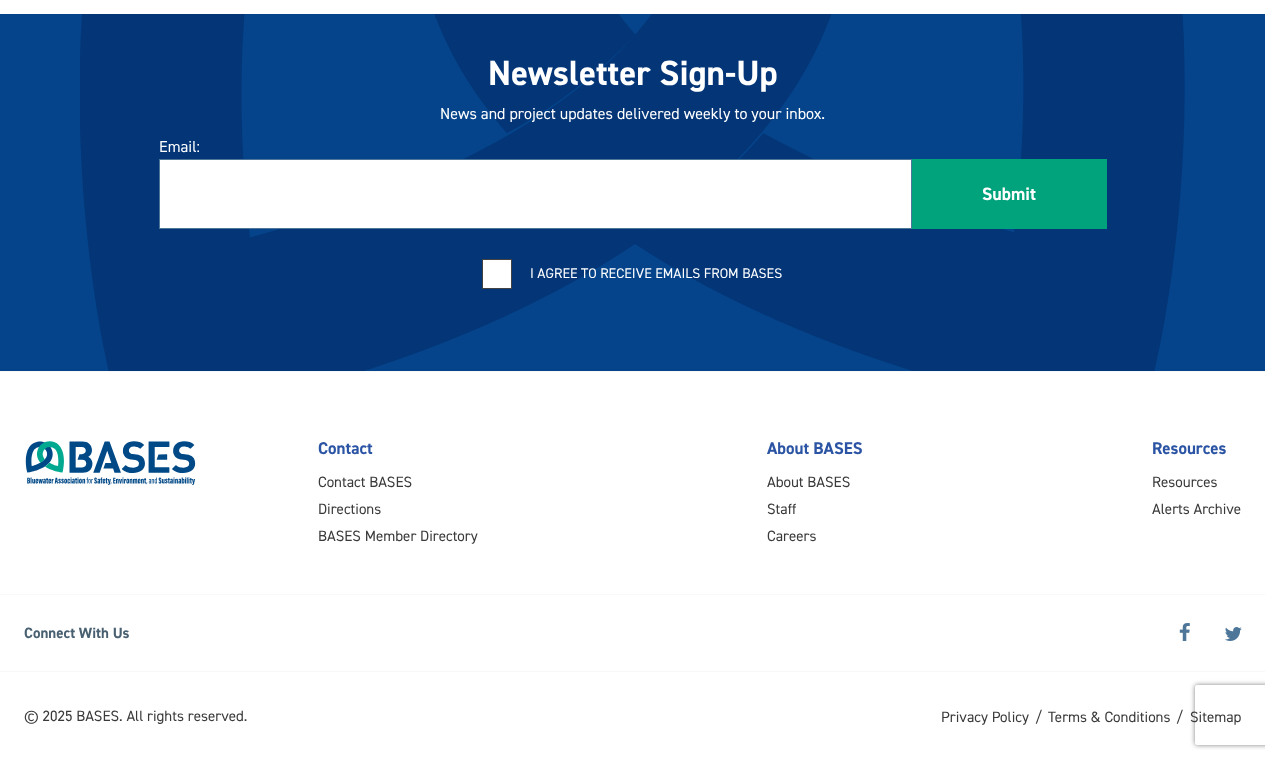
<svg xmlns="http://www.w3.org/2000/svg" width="1265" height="759">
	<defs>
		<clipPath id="clip1"><path d="M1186 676H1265V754H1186ZM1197 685H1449C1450 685 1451 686 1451 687V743C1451 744 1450 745 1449 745H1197C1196 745 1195 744 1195 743V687C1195 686 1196 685 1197 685Z" clip-rule="evenodd" /></clipPath>
	</defs>
	<rect width="100%" height="100%" fill="#FFFFFF" />
	<rect x="0" y="14" width="1265" height="357" fill="#05448A" />
	<image x="80" y="14" width="1105" height="357" href="assets/img1.png" />
	<text x="488" y="85" font-family="'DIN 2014'" font-size="35" font-weight="700" fill="#FFFFFF">Newsletter Sign-Up</text>
	<g font-family="'DIN 2014'" font-size="16" fill="#FFFFFF">
		<text x="440" y="119">News and project updates delivered weekly to your inbox.</text>
		<text x="159" y="152">Email:</text>
	</g>
	<rect x="159.5" y="159.5" width="752" height="69" fill="#FFFFFF" stroke="#4D7699" />
	<rect x="912" y="159" width="195" height="70" fill="#00A37B" />
	<text x="982" y="200" font-family="'DIN 2014'" font-size="18" font-weight="700" fill="#FFFFFF">Submit</text>
	<rect x="482.5" y="259.5" width="29" height="29" fill="#FFFFFF" stroke="#424242" />
	<text x="530" y="278" font-family="'DIN 2014'" font-size="14" fill="#FFFFFF">I AGREE TO RECEIVE EMAILS FROM BASES</text>
	<g clip-path="url(#clip1)">
		<rect x="1195" y="685" width="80" height="60" rx="2" fill="#808080" filter="blur(2.5px)" />
	</g>
	<rect x="0" y="371" width="1265" height="1" fill="#F6F8FA" />
	<image x="25" y="441" width="171" height="44" href="assets/img2.png" />
	<text x="318" y="454" font-family="'DIN 2014'" font-size="17" font-weight="700" fill="#2B54A4">Contact</text>
	<g font-family="'DIN 2014'" font-size="15" fill="#3A3A3A">
		<text x="318" y="487">Contact BASES</text>
		<text x="318" y="514">Directions</text>
		<text x="318" y="541">BASES Member Directory</text>
	</g>
	<text x="767" y="454" font-family="'DIN 2014'" font-size="17" font-weight="700" fill="#2B54A4">About BASES</text>
	<g font-family="'DIN 2014'" font-size="15" fill="#3A3A3A">
		<text x="767" y="487">About BASES</text>
		<text x="767" y="514">Staff</text>
		<text x="767" y="541">Careers</text>
	</g>
	<text x="1152" y="454" font-family="'DIN 2014'" font-size="17" font-weight="700" fill="#2B54A4">Resources</text>
	<g font-family="'DIN 2014'" font-size="15" fill="#3A3A3A">
		<text x="1152" y="487">Resources</text>
		<text x="1152" y="514">Alerts Archive</text>
	</g>
	<rect x="0" y="594" width="1265" height="1" fill="#F6F8FA" />
	<text x="24" y="638" font-family="'DIN 2014'" font-size="15" font-weight="700" fill="#496071">Connect With Us</text>
	<image x="1179" y="623" width="11" height="18" href="assets/img3.png" />
	<image x="1225" y="627" width="17" height="14" href="assets/img4.png" />
	<rect x="0" y="671" width="1265" height="1" fill="#F6F8FA" />
	<g font-family="'DIN 2014'" font-size="15" fill="#3A3A3A">
		<text x="24" y="721">© 2025 BASES. All rights reserved.</text>
		<text x="941" y="722">Privacy Policy</text>
		<text x="1035" y="722">/</text>
		<text x="1048" y="722">Terms &amp; Conditions</text>
		<text x="1176" y="722">/</text>
		<text x="1190" y="722">Sitemap</text>
	</g>
</svg>
